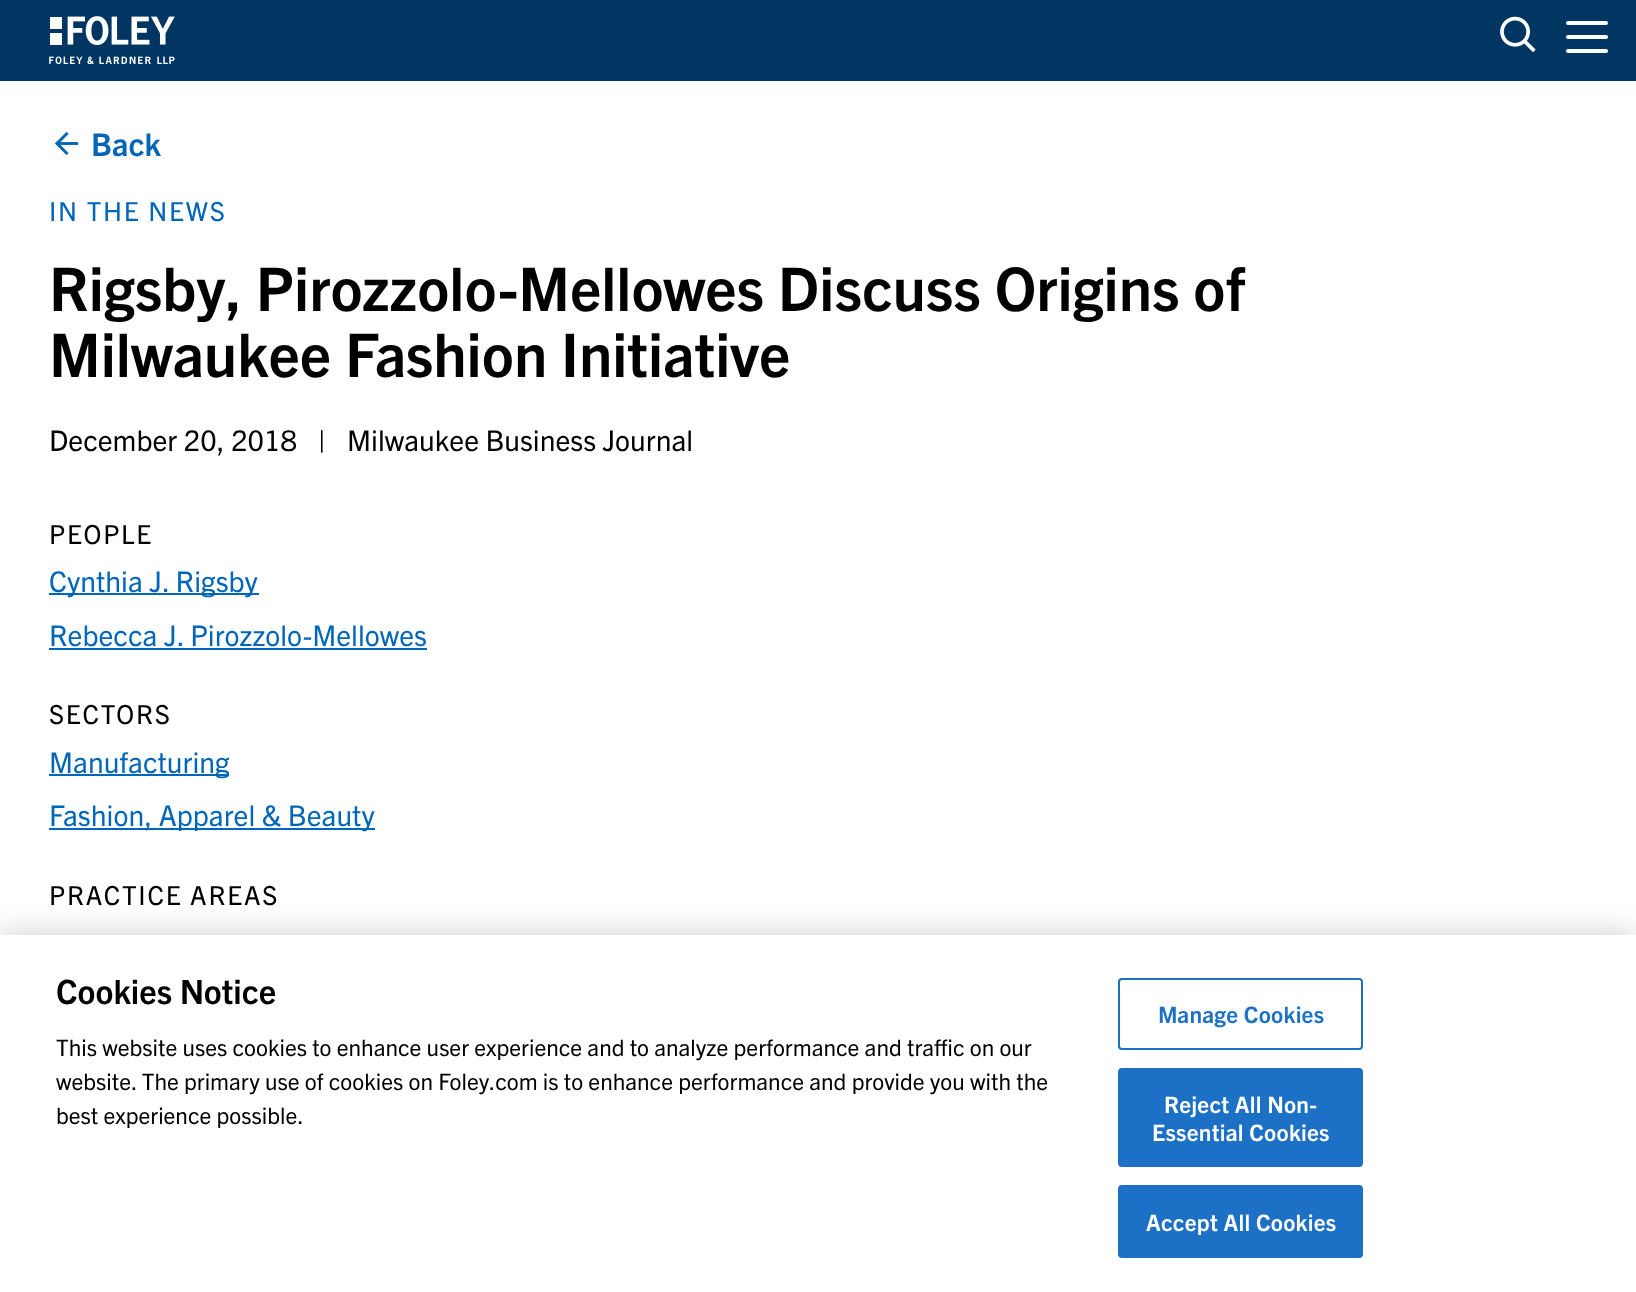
<svg xmlns="http://www.w3.org/2000/svg" width="1636" height="1292">
	<rect width="100%" height="100%" fill="#FFFFFF" />
	<rect x="0" y="0" width="1636" height="81" fill="#003661" />
	<image x="49" y="16" width="126" height="48" href="assets/img1.png" />
	<image x="1500" y="16" width="36" height="37" href="assets/img2.png" />
	<rect x="1566" y="21" width="42" height="4" rx="2" fill="#FFFFFF" />
	<rect x="1566" y="35" width="42" height="4" rx="2" fill="#FFFFFF" />
	<rect x="1566" y="49" width="42" height="4" rx="2" fill="#FFFFFF" />
	<image x="54" y="131" width="25" height="25" href="assets/img3.png" />
	<text x="91" y="156" font-family="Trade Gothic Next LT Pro" font-size="31.5" font-weight="700" fill="#0066BA">Back</text>
	<text x="49" y="221" font-family="Trade Gothic Next LT Pro" font-size="26.25" letter-spacing="1.75" fill="#0066BA">IN THE NEWS</text>
	<g font-family="Trade Gothic Next LT Pro" font-size="60.2" font-weight="700" fill="#000000">
		<text x="49" y="311">Rigsby, Pirozzolo-Mellowes Discuss Origins of</text>
		<text x="49" y="377">Milwaukee Fashion Initiative</text>
	</g>
	<g font-family="Trade Gothic Next LT Pro" font-size="28.6" fill="#000000">
		<text x="49" y="451">December 20, 2018</text>
		<text x="318" y="451">|</text>
		<text x="347" y="451">Milwaukee Business Journal</text>
	</g>
	<text x="49" y="544" font-family="Trade Gothic Next LT Pro" font-size="26.25" letter-spacing="1.75" fill="#000000">PEOPLE</text>
	<rect x="49" y="593" width="210" height="2" fill="#0066BA" />
	<g font-family="Trade Gothic Next LT Pro" font-size="28.6" fill="#0066BA">
		<text x="49" y="592">Cynthia J. Rigsby</text>
		<text x="49" y="646">Rebecca J. Pirozzolo-Mellowes</text>
	</g>
	<rect x="49" y="648" width="378" height="2" fill="#0066BA" />
	<text x="49" y="724" font-family="Trade Gothic Next LT Pro" font-size="26.25" letter-spacing="1.75" fill="#000000">SECTORS</text>
	<rect x="49" y="774" width="180" height="2" fill="#0066BA" />
	<text x="49" y="773" font-family="Trade Gothic Next LT Pro" font-size="28.6" fill="#0066BA">Manufacturing</text>
	<rect x="49" y="828" width="326" height="2" fill="#0066BA" />
	<text x="49" y="826" font-family="Trade Gothic Next LT Pro" font-size="28.6" fill="#0066BA">Fashion, Apparel &amp; Beauty</text>
	<text x="49" y="905" font-family="Trade Gothic Next LT Pro" font-size="26.25" letter-spacing="1.75" fill="#000000">PRACTICE AREAS</text>
	<rect x="0" y="935" width="1636" height="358" fill="#000000" fill-opacity="0.2" filter="blur(16px)" />
	<rect x="0" y="935" width="1636" height="357" fill="#FFFFFF" />
	<text x="56" y="1004" font-family="Trade Gothic Next LT Pro" font-size="33.5" font-weight="700" fill="#000000">Cookies Notice</text>
	<g font-family="Trade Gothic Next LT Pro" font-size="22.75" fill="#000000">
		<text x="56" y="1056">This website uses cookies to enhance user experience and to analyze performance and traffic on our</text>
		<text x="56" y="1090">website. The primary use of cookies on Foley.com is to enhance performance and provide you with the</text>
		<text x="56" y="1124">best experience possible.</text>
	</g>
	<rect x="1119" y="979" width="243" height="70" rx="3" fill="none" stroke="#1C70C6" stroke-width="2" />
	<text x="1158" y="1023" font-family="Trade Gothic Next LT Pro" font-size="22.75" font-weight="700" letter-spacing="0.25" fill="#1C70C6">Manage Cookies</text>
	<rect x="1119" y="1069" width="243" height="97" rx="3" fill="#1C70C6" stroke="#1C70C6" stroke-width="2" />
	<g font-family="Trade Gothic Next LT Pro" font-size="22.75" font-weight="700" letter-spacing="0.25" fill="#FFFFFF">
		<text x="1164" y="1113">Reject All Non-</text>
		<text x="1152" y="1141">Essential Cookies</text>
	</g>
	<rect x="1119" y="1186" width="243" height="71" rx="3" fill="#1C70C6" stroke="#1C70C6" stroke-width="2" />
	<text x="1146" y="1231" font-family="Trade Gothic Next LT Pro" font-size="22.75" font-weight="700" letter-spacing="0.25" fill="#FFFFFF">Accept All Cookies</text>
</svg>
